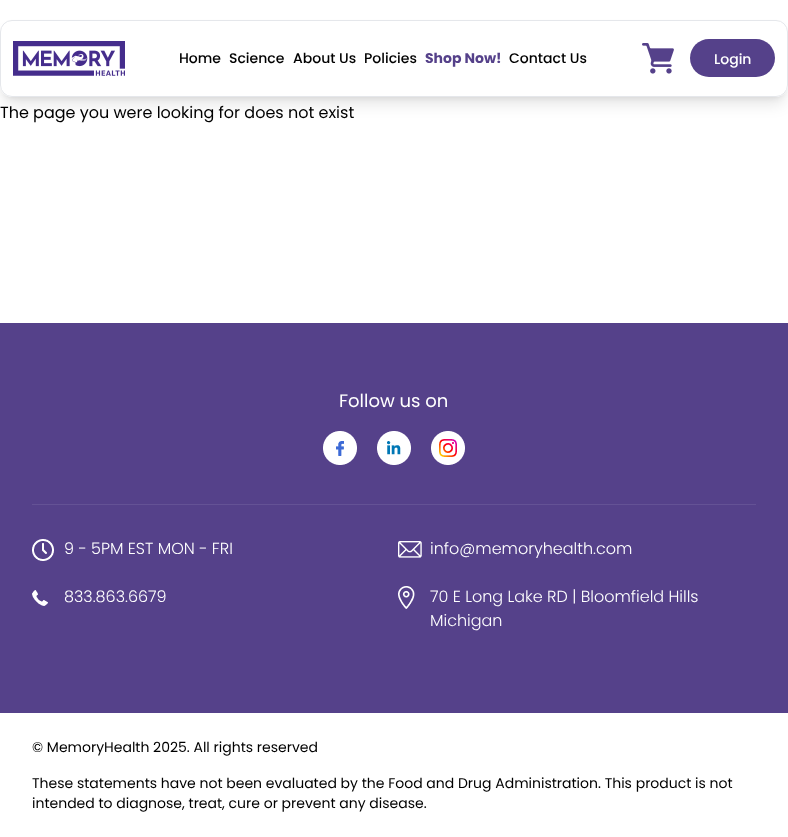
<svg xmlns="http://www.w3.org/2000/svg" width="788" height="837">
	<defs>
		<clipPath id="clip1"><path d="M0 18H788V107H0ZM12 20H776C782.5 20 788 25.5 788 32V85C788 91.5 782.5 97 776 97H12C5.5 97 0 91.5 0 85V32C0 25.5 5.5 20 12 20Z" clip-rule="evenodd" /></clipPath>
		<clipPath id="clip2"><path d="M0 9H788V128H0ZM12 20H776C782.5 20 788 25.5 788 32V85C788 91.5 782.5 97 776 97H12C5.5 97 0 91.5 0 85V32C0 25.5 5.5 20 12 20Z" clip-rule="evenodd" /></clipPath>
	</defs>
	<rect width="100%" height="100%" fill="#FFFFFF" />
	<g clip-path="url(#clip1)">
		<rect x="4" y="28" width="780" height="69" rx="8" fill="#000000" fill-opacity="0.1" filter="blur(3px)" />
	</g>
	<g clip-path="url(#clip2)">
		<rect x="3" y="33" width="782" height="71" rx="9" fill="#000000" fill-opacity="0.1" filter="blur(7.5px)" />
	</g>
	<rect x="0.5" y="20.5" width="787" height="76" rx="11.5" fill="#FFFFFF" fill-opacity="0.9" stroke="#E5E7EB" />
	<image x="13" y="41" width="112" height="35" href="assets/img1.png" />
	<g font-family="Poppins" font-size="14" font-weight="500" fill="#000000">
		<text x="179" y="63">Home</text>
		<text x="229" y="63">Science</text>
		<text x="293" y="63">About Us</text>
		<text x="364" y="63">Policies</text>
	</g>
	<text x="425" y="63" font-family="Poppins" font-size="14" font-weight="700" fill="#55418A">Shop Now!</text>
	<text x="509" y="63" font-family="Poppins" font-size="14" font-weight="500" fill="#000000">Contact Us</text>
	<image x="642" y="43" width="32" height="31" href="assets/img2.png" />
	<rect x="690" y="39" width="85" height="38" rx="19" fill="#55418A" />
	<text x="714" y="64" font-family="Poppins" font-size="14" font-weight="500" fill="#FFFFFF">Login</text>
	<text x="0" y="118" font-family="Poppins" font-size="16" fill="#000000">The page you were looking for does not exist</text>
	<rect x="0" y="323" width="788" height="390" fill="#55418A" />
	<text x="339" y="407" font-family="Poppins" font-size="18" fill="#FFFFFF">Follow us on</text>
	<image x="323" y="431" width="34" height="34" href="assets/img3.png" />
	<image x="377" y="431" width="34" height="34" href="assets/img4.png" />
	<image x="431" y="431" width="34" height="34" href="assets/img5.png" />
	<rect x="32" y="504" width="724" height="1" fill="#645295" />
	<image x="32" y="539" width="22" height="22" href="assets/img6.png" />
	<text x="64" y="554" font-family="Poppins" font-size="16" font-weight="300" fill="#FFFFFF">9 - 5PM EST MON - FRI</text>
	<image x="398" y="541" width="24" height="17" href="assets/img7.png" />
	<text x="430" y="554" font-family="Poppins" font-size="16" font-weight="300" fill="#FFFFFF">info@memoryhealth.com</text>
	<image x="32" y="590" width="16" height="16" href="assets/img8.png" />
	<text x="64" y="602" font-family="Poppins" font-size="16" font-weight="300" fill="#FFFFFF">833.863.6679</text>
	<image x="398" y="586" width="17" height="23" href="assets/img9.png" />
	<g font-family="Poppins" font-size="16" font-weight="300" fill="#FFFFFF">
		<text x="430" y="602">70 E Long Lake RD | Bloomfield Hills</text>
		<text x="430" y="626">Michigan</text>
	</g>
	<g font-family="Poppins" font-size="14" fill="#000000">
		<text x="32" y="752">© MemoryHealth 2025. All rights reserved</text>
		<text x="32" y="788">These statements have not been evaluated by the Food and Drug Administration. This product is not</text>
		<text x="32" y="808">intended to diagnose, treat, cure or prevent any disease.</text>
	</g>
</svg>
